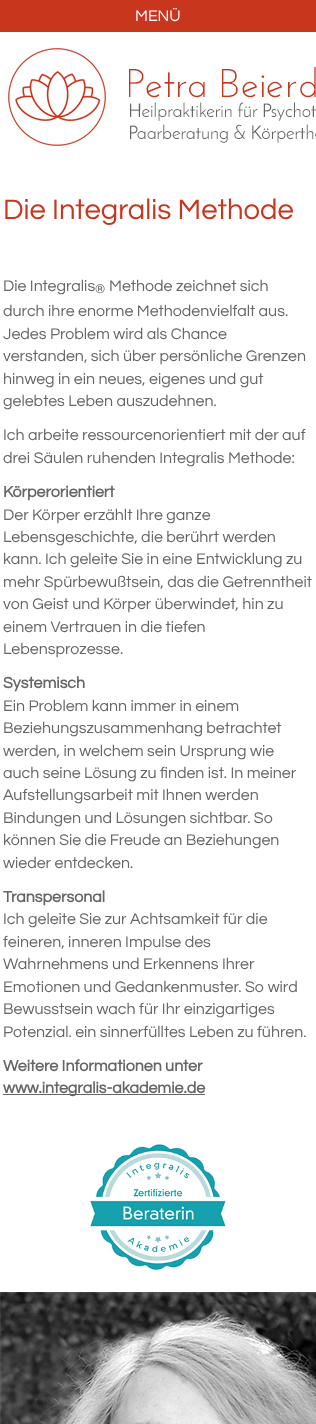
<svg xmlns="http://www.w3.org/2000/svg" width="316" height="1424">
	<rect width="100%" height="100%" fill="#FFFFFF" />
	<rect x="0" y="0" width="316" height="32" fill="#C7361D" />
	<text x="135" y="21" font-family="Questrial" font-size="16" fill="#FFFFFF">MENÜ</text>
	<image x="8" y="48" width="308" height="98" href="assets/img1.png" />
	<text x="3" y="219" font-family="Questrial" font-size="29.25" fill="#C7361D">Die Integralis Methode</text>
	<text x="3" y="291" font-family="Questrial" font-size="16" fill="#666666">Die Integralis</text>
	<text x="95" y="293" font-family="Questrial" font-size="13" fill="#666666">®</text>
	<g font-family="Questrial" font-size="16" fill="#666666">
		<text x="109" y="291">Methode zeichnet sich</text>
		<text x="3" y="316">durch ihre enorme Methodenvielfalt aus.</text>
		<text x="3" y="339">Jedes Problem wird als Chance</text>
		<text x="3" y="361">verstanden, sich über persönliche Grenzen</text>
		<text x="3" y="384">hinweg in ein neues, eigenes und gut</text>
		<text x="3" y="406">gelebtes Leben auszudehnen.</text>
		<text x="3" y="440">Ich arbeite ressourcenorientiert mit der auf</text>
		<text x="3" y="463">drei Säulen ruhenden Integralis Methode:</text>
	</g>
	<text x="3" y="497" font-family="Questrial" font-size="16" font-weight="700" fill="#666666">Körperorientiert</text>
	<g font-family="Questrial" font-size="16" fill="#666666">
		<text x="3" y="520">Der Körper erzählt Ihre ganze</text>
		<text x="3" y="542">Lebensgeschichte, die berührt werden</text>
		<text x="3" y="564">kann. Ich geleite Sie in eine Entwicklung zu</text>
		<text x="3" y="587">mehr Spürbewußtsein, das die Getrenntheit</text>
		<text x="3" y="609">von Geist und Körper überwindet, hin zu</text>
		<text x="3" y="632">einem Vertrauen in die tiefen</text>
		<text x="3" y="654">Lebensprozesse.</text>
	</g>
	<text x="3" y="688" font-family="Questrial" font-size="16" font-weight="700" fill="#666666">Systemisch</text>
	<g font-family="Questrial" font-size="16" fill="#666666">
		<text x="3" y="711">Ein Problem kann immer in einem</text>
		<text x="3" y="733">Beziehungszusammenhang betrachtet</text>
		<text x="3" y="756">werden, in welchem sein Ursprung wie</text>
		<text x="3" y="778">auch seine Lösung zu finden ist. In meiner</text>
		<text x="3" y="800">Aufstellungsarbeit mit Ihnen werden</text>
		<text x="3" y="823">Bindungen und Lösungen sichtbar. So</text>
		<text x="3" y="845">können Sie die Freude an Beziehungen</text>
		<text x="3" y="868">wieder entdecken.</text>
	</g>
	<text x="3" y="902" font-family="Questrial" font-size="16" font-weight="700" fill="#666666">Transpersonal</text>
	<g font-family="Questrial" font-size="16" fill="#666666">
		<text x="3" y="924">Ich geleite Sie zur Achtsamkeit für die</text>
		<text x="3" y="947">feineren, inneren Impulse des</text>
		<text x="3" y="969">Wahrnehmens und Erkennens Ihrer</text>
		<text x="3" y="992">Emotionen und Gedankenmuster. So wird</text>
		<text x="3" y="1014">Bewusstsein wach für Ihr einzigartiges</text>
		<text x="3" y="1037">Potenzial. ein sinnerfülltes Leben zu führen.</text>
	</g>
	<text x="3" y="1071" font-family="Questrial" font-size="16" font-weight="700" fill="#666666">Weitere Informationen unter</text>
	<rect x="3" y="1094" width="202" height="1" fill="#666666" />
	<text x="3" y="1093" font-family="Questrial" font-size="16" font-weight="700" fill="#666666">www.integralis-akademie.de</text>
	<image x="90" y="1144" width="136" height="127" href="assets/img2.png" />
	<image x="0" y="1292" width="316" height="132" href="assets/img3.png" />
</svg>
